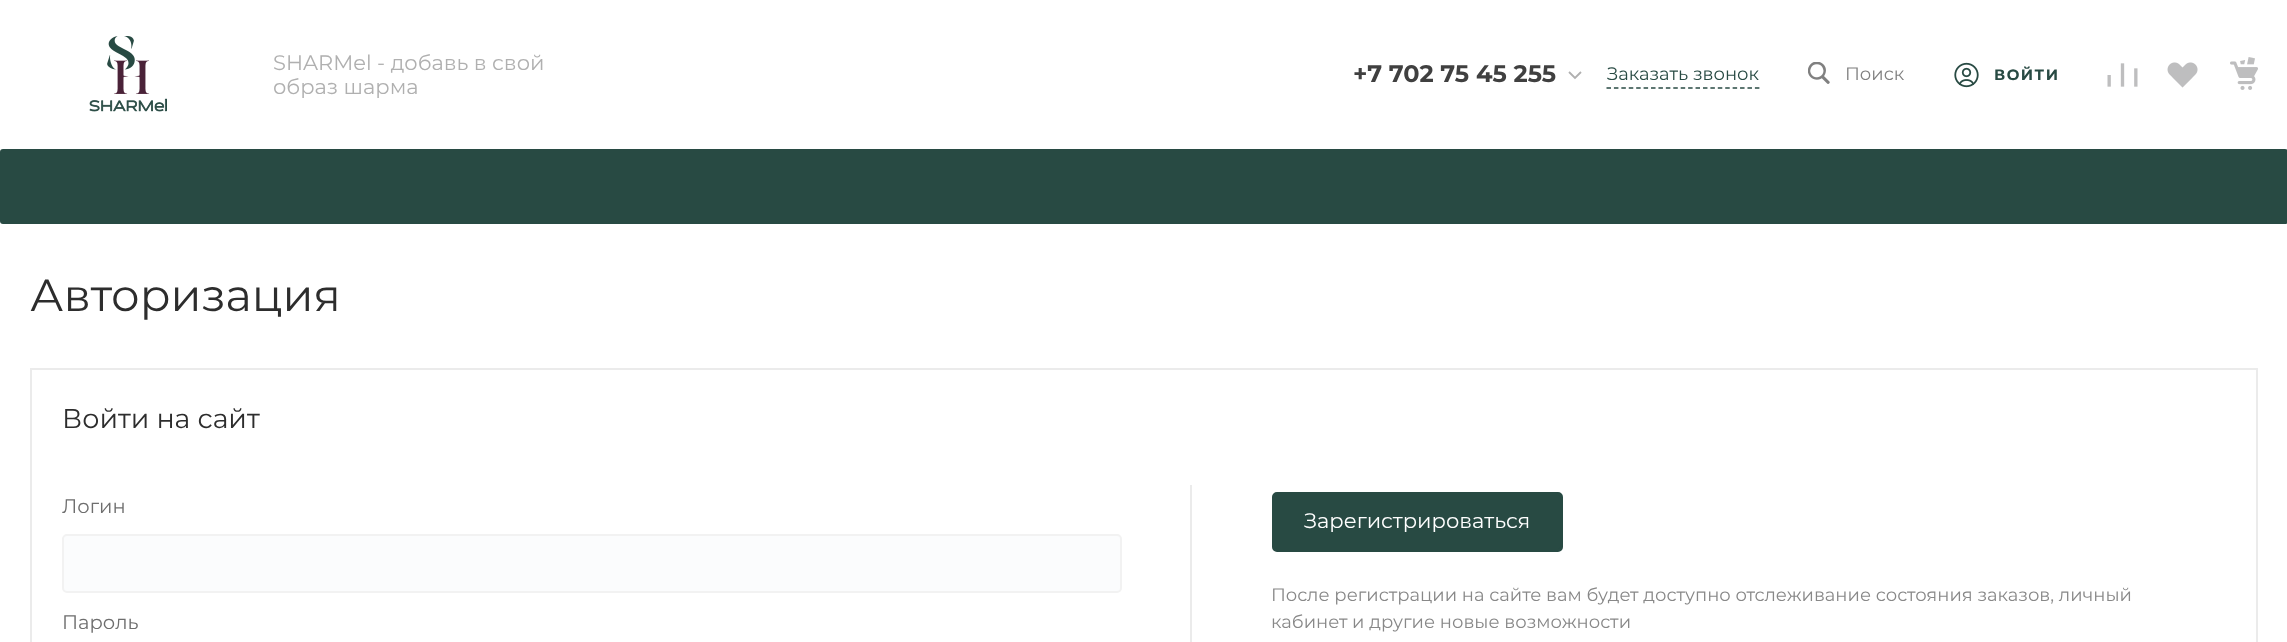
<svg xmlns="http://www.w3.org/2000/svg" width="2287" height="642">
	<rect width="100%" height="100%" fill="#FFFFFF" />
	<image x="89" y="36" width="78" height="76" href="assets/img1.png" />
	<g font-family="Montserrat" font-size="21" fill="#B0B0B0">
		<text x="273" y="70">SHARMel - добавь в свой</text>
		<text x="273" y="94">образ шарма</text>
	</g>
	<text x="1353" y="82" font-family="Montserrat" font-size="24" font-weight="700" fill="#404040">+7 702 75 45 255</text>
	<path d="M1569 72L1575 78L1581 72" fill="none" stroke="#B0B0B0" stroke-width="1.8" />
	<path d="M1606.5 88H1759.5" fill="none" stroke="#284A43" stroke-width="1.5" stroke-dasharray="4.5 2.92" />
	<text x="1607" y="80" font-family="Montserrat" font-size="18" fill="#284A43">Заказать звонок</text>
	<image x="1808" y="62" width="22" height="22" href="assets/img2.png" />
	<text x="1845" y="80" font-family="Montserrat" font-size="18" fill="#808080">Поиск</text>
	<image x="1954" y="62" width="25" height="26" href="assets/img3.png" />
	<text x="1994" y="80" font-family="Montserrat" font-size="15" font-weight="700" letter-spacing="1.5" fill="#284A43">ВОЙТИ</text>
	<image x="2107" y="63" width="31" height="24" href="assets/img4.png" />
	<image x="2167" y="62" width="31" height="26" href="assets/img5.png" />
	<image x="2230" y="57" width="28" height="33" href="assets/img6.png" />
	<rect x="0" y="149" width="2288" height="75" rx="3" fill="#284A43" />
	<text x="30" y="311" font-family="Montserrat" font-size="45" fill="#2D2D2D">Авторизация</text>
	<rect x="31" y="369" width="2226" height="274" fill="none" stroke="#EBEBEB" stroke-width="2" />
	<text x="62" y="428" font-family="Montserrat" font-size="27" fill="#2D2D2D">Войти на сайт</text>
	<text x="62" y="513" font-family="Montserrat" font-size="19.5" fill="#6E6E6E">Логин</text>
	<rect x="63" y="535" width="1058" height="57" rx="4" fill="#FBFCFD" stroke="#F2F2F2" stroke-width="2" />
	<text x="62" y="629" font-family="Montserrat" font-size="19.5" fill="#6E6E6E">Пароль</text>
	<rect x="1190" y="485" width="2" height="157" fill="#EBEBEB" />
	<rect x="1273.5" y="493.5" width="288" height="57" rx="3.5" fill="#284A43" stroke="#284A43" stroke-width="3" />
	<text x="1304" y="528" font-family="Montserrat" font-size="21" fill="#FFFFFF">Зарегистрироваться</text>
	<g font-family="Montserrat" font-size="18" fill="#888888">
		<text x="1271" y="601">После регистрации на сайте вам будет доступно отслеживание состояния заказов, личный</text>
		<text x="1271" y="628">кабинет и другие новые возможности</text>
	</g>
</svg>
